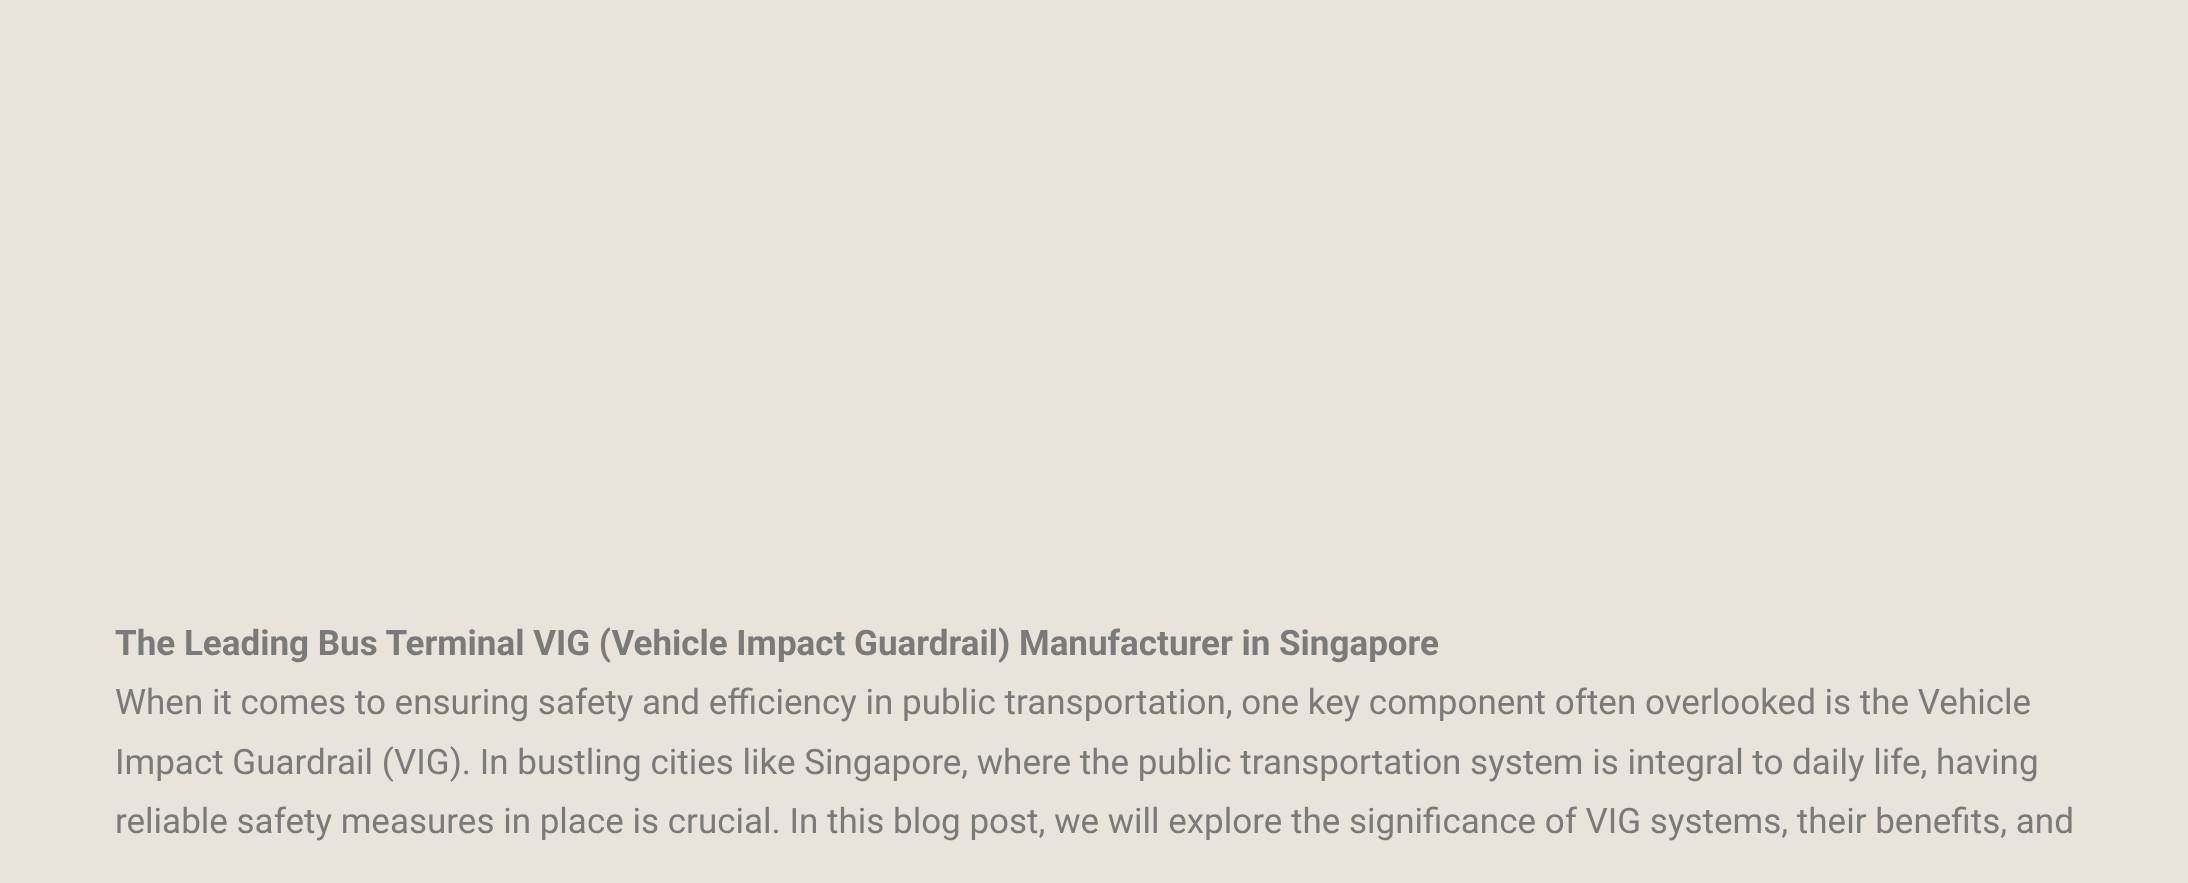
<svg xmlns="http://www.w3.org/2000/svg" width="2188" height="883">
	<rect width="100%" height="100%" fill="#E8E4DC" />
	<text x="115" y="655" font-family="Roboto" font-size="35" font-weight="700" fill="#7A7A7A">The Leading Bus Terminal VIG (Vehicle Impact Guardrail) Manufacturer in Singapore</text>
	<g font-family="Roboto" font-size="35" fill="#7A7A7A">
		<text x="115" y="714">When it comes to ensuring safety and efficiency in public transportation, one key component often overlooked is the Vehicle</text>
		<text x="115" y="774">Impact Guardrail (VIG). In bustling cities like Singapore, where the public transportation system is integral to daily life, having</text>
		<text x="115" y="833">reliable safety measures in place is crucial. In this blog post, we will explore the significance of VIG systems, their benefits, and</text>
	</g>
</svg>
